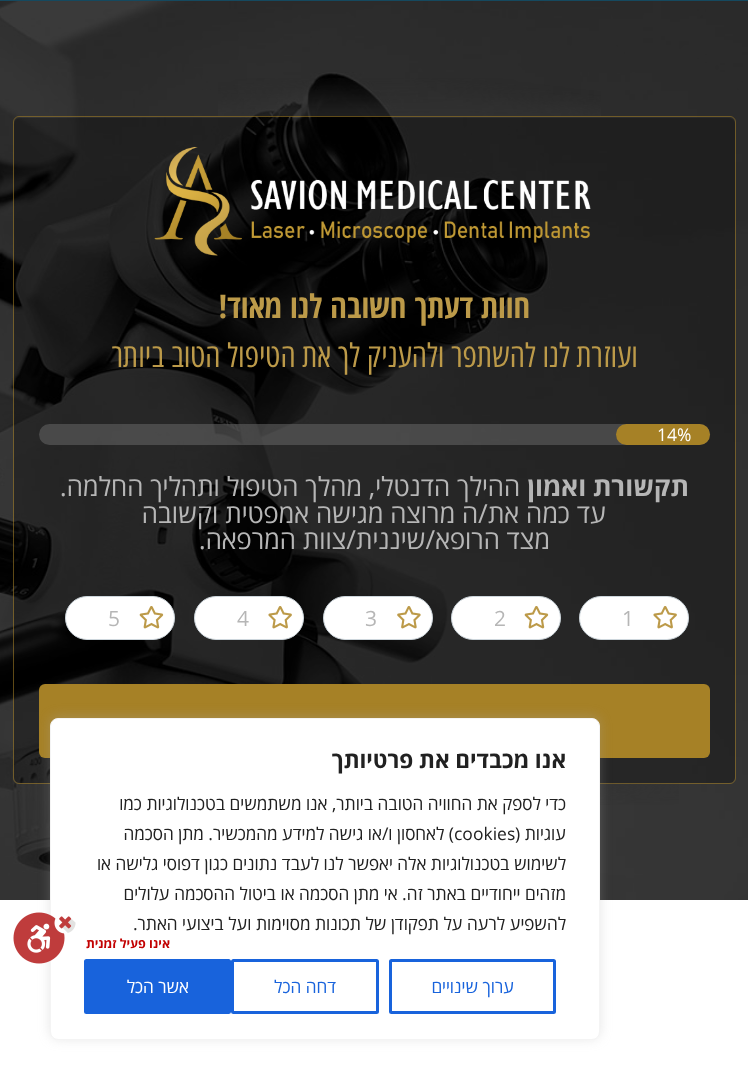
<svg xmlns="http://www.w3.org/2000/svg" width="748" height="1090">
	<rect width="100%" height="100%" fill="#FFFFFF" />
	<image x="0" y="1" width="748" height="899" href="assets/img1.png" />
	<image x="218" y="78" width="383" height="39" href="assets/img2.png" />
	<rect x="13.5" y="116.5" width="722" height="667" rx="5.5" fill="none" stroke="#A68126" stroke-opacity="0.57" />
	<rect x="14" y="118" width="721" height="665" rx="6" fill="#000000" fill-opacity="0.28" />
	<image x="154" y="146" width="437" height="110" href="assets/img3.png" />
	<text x="530" y="318" font-family="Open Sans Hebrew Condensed" font-size="32.5" font-weight="700" direction="rtl" fill="#BC9A49">חוות דעתך חשובה לנו מאוד!</text>
	<text x="638" y="367" font-family="Open Sans Hebrew Condensed" font-size="32.5" direction="rtl" fill="#BC9A49">ועוזרת לנו להשתפר ולהעניק לך את הטיפול הטוב ביותר</text>
	<rect x="39" y="424" width="671" height="21" rx="10.5" fill="#636363" fill-opacity="0.59" />
	<rect x="616" y="424" width="94" height="21" rx="10.5" fill="#A68126" />
	<text x="657" y="441" font-family="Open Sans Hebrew" font-size="17.5" fill="#FFFFFF">14%</text>
	<text x="689" y="496" font-family="Open Sans Hebrew" font-size="26.25" font-weight="700" direction="rtl" fill="#B6B6B6">תקשורת ואמון</text>
	<g font-family="Open Sans Hebrew" font-size="26.25" direction="rtl" fill="#B6B6B6">
		<text x="520" y="496">ההילך הדנטלי, מהלך הטיפול ותהליך החלמה.</text>
		<text x="606" y="523">עד כמה את/ה מרוצה מגישה אמפטית וקשובה</text>
		<text x="550" y="549">מצד הרופא/שיננית/צוות המרפאה.</text>
	</g>
	<rect x="579.5" y="596.5" width="109" height="43" rx="21.5" fill="#FFFFFF" stroke="#CDD6DC" />
	<image x="653" y="606" width="24" height="23" href="assets/img4.png" />
	<text x="622" y="626" font-family="Open Sans Hebrew" font-size="21" fill="#B6B6B6">1</text>
	<rect x="451.5" y="596.5" width="109" height="43" rx="21.5" fill="#FFFFFF" stroke="#CDD6DC" />
	<image x="524" y="606" width="25" height="23" href="assets/img5.png" />
	<text x="494" y="626" font-family="Open Sans Hebrew" font-size="21" fill="#B6B6B6">2</text>
	<rect x="323.5" y="596.5" width="109" height="43" rx="21.5" fill="#FFFFFF" stroke="#CDD6DC" />
	<image x="397" y="606" width="24" height="23" href="assets/img6.png" />
	<text x="365" y="626" font-family="Open Sans Hebrew" font-size="21" fill="#B6B6B6">3</text>
	<rect x="194.5" y="596.5" width="109" height="43" rx="21.5" fill="#FFFFFF" stroke="#CDD6DC" />
	<image x="268" y="606" width="24" height="23" href="assets/img4.png" />
	<text x="237" y="626" font-family="Open Sans Hebrew" font-size="21" fill="#B6B6B6">4</text>
	<rect x="65.5" y="596.5" width="109" height="43" rx="21.5" fill="#FFFFFF" stroke="#CDD6DC" />
	<image x="139" y="606" width="25" height="23" href="assets/img5.png" />
	<text x="108" y="626" font-family="Open Sans Hebrew" font-size="21" fill="#B6B6B6">5</text>
	<rect x="39" y="684" width="671" height="74" rx="6" fill="#A68126" />
	<image x="600" y="783" width="79" height="22" href="assets/img7.png" />
	<rect x="50" y="716" width="550" height="323" rx="8" fill="#ACABAB" fill-opacity="0.3" filter="blur(6px)" />
	<rect x="50.5" y="718.5" width="549" height="321" rx="7.5" fill="#FFFFFF" stroke="#F4F4F4" />
	<text x="566" y="768" font-family="Open Sans Hebrew" font-size="22.5" font-weight="700" direction="rtl" fill="#212121">אנו מכבדים את פרטיותך</text>
	<g font-family="Open Sans Hebrew" font-size="17.5" direction="rtl" fill="#212121">
		<text x="566" y="810">כדי לספק את החוויה הטובה ביותר, אנו משתמשים בטכנולוגיות כמו</text>
		<text x="566" y="840">עוגיות (</text>
	</g>
	<text x="454" y="840" font-family="Open Sans Hebrew" font-size="17.5" fill="#212121">cookies</text>
	<g font-family="Open Sans Hebrew" font-size="17.5" direction="rtl" fill="#212121">
		<text x="454" y="840">) לאחסון ו/או גישה למידע מהמכשיר. מתן הסכמה</text>
		<text x="566" y="870">לשימוש בטכנולוגיות אלה יאפשר לנו לעבד נתונים כגון דפוסי גלישה או</text>
		<text x="566" y="900">מזהים ייחודיים באתר זה. אי מתן הסכמה או ביטול ההסכמה עלולים</text>
		<text x="566" y="930">להשפיע לרעה על תפקודן של תכונות מסוימות ועל ביצועי האתר.</text>
	</g>
	<rect x="390.5" y="960.5" width="164" height="52" rx="1" fill="none" stroke="#1863DC" stroke-width="3" />
	<text x="514" y="993" font-family="Open Sans Hebrew" font-size="17.5" direction="rtl" fill="#1863DC">ערוך שינויים</text>
	<rect x="232.5" y="960.5" width="145" height="52" rx="1" fill="none" stroke="#1863DC" stroke-width="3" />
	<text x="336" y="993" font-family="Open Sans Hebrew" font-size="17.5" direction="rtl" fill="#1863DC">דחה הכל</text>
	<rect x="85.5" y="960.5" width="144" height="52" rx="1" fill="#1863DC" stroke="#1863DC" stroke-width="3" />
	<text x="189" y="993" font-family="Open Sans Hebrew" font-size="17.5" direction="rtl" fill="#FFFFFF">אשר הכל</text>
	<rect x="0" y="0" width="748" height="1" fill="#15495F" />
	<text x="170" y="948" font-family="Open Sans Hebrew" font-size="12.5" font-weight="700" direction="rtl" fill="#C20000">אינו פעיל זמנית</text>
	<image x="13" y="912" width="63" height="52" href="assets/img8.png" />
</svg>
